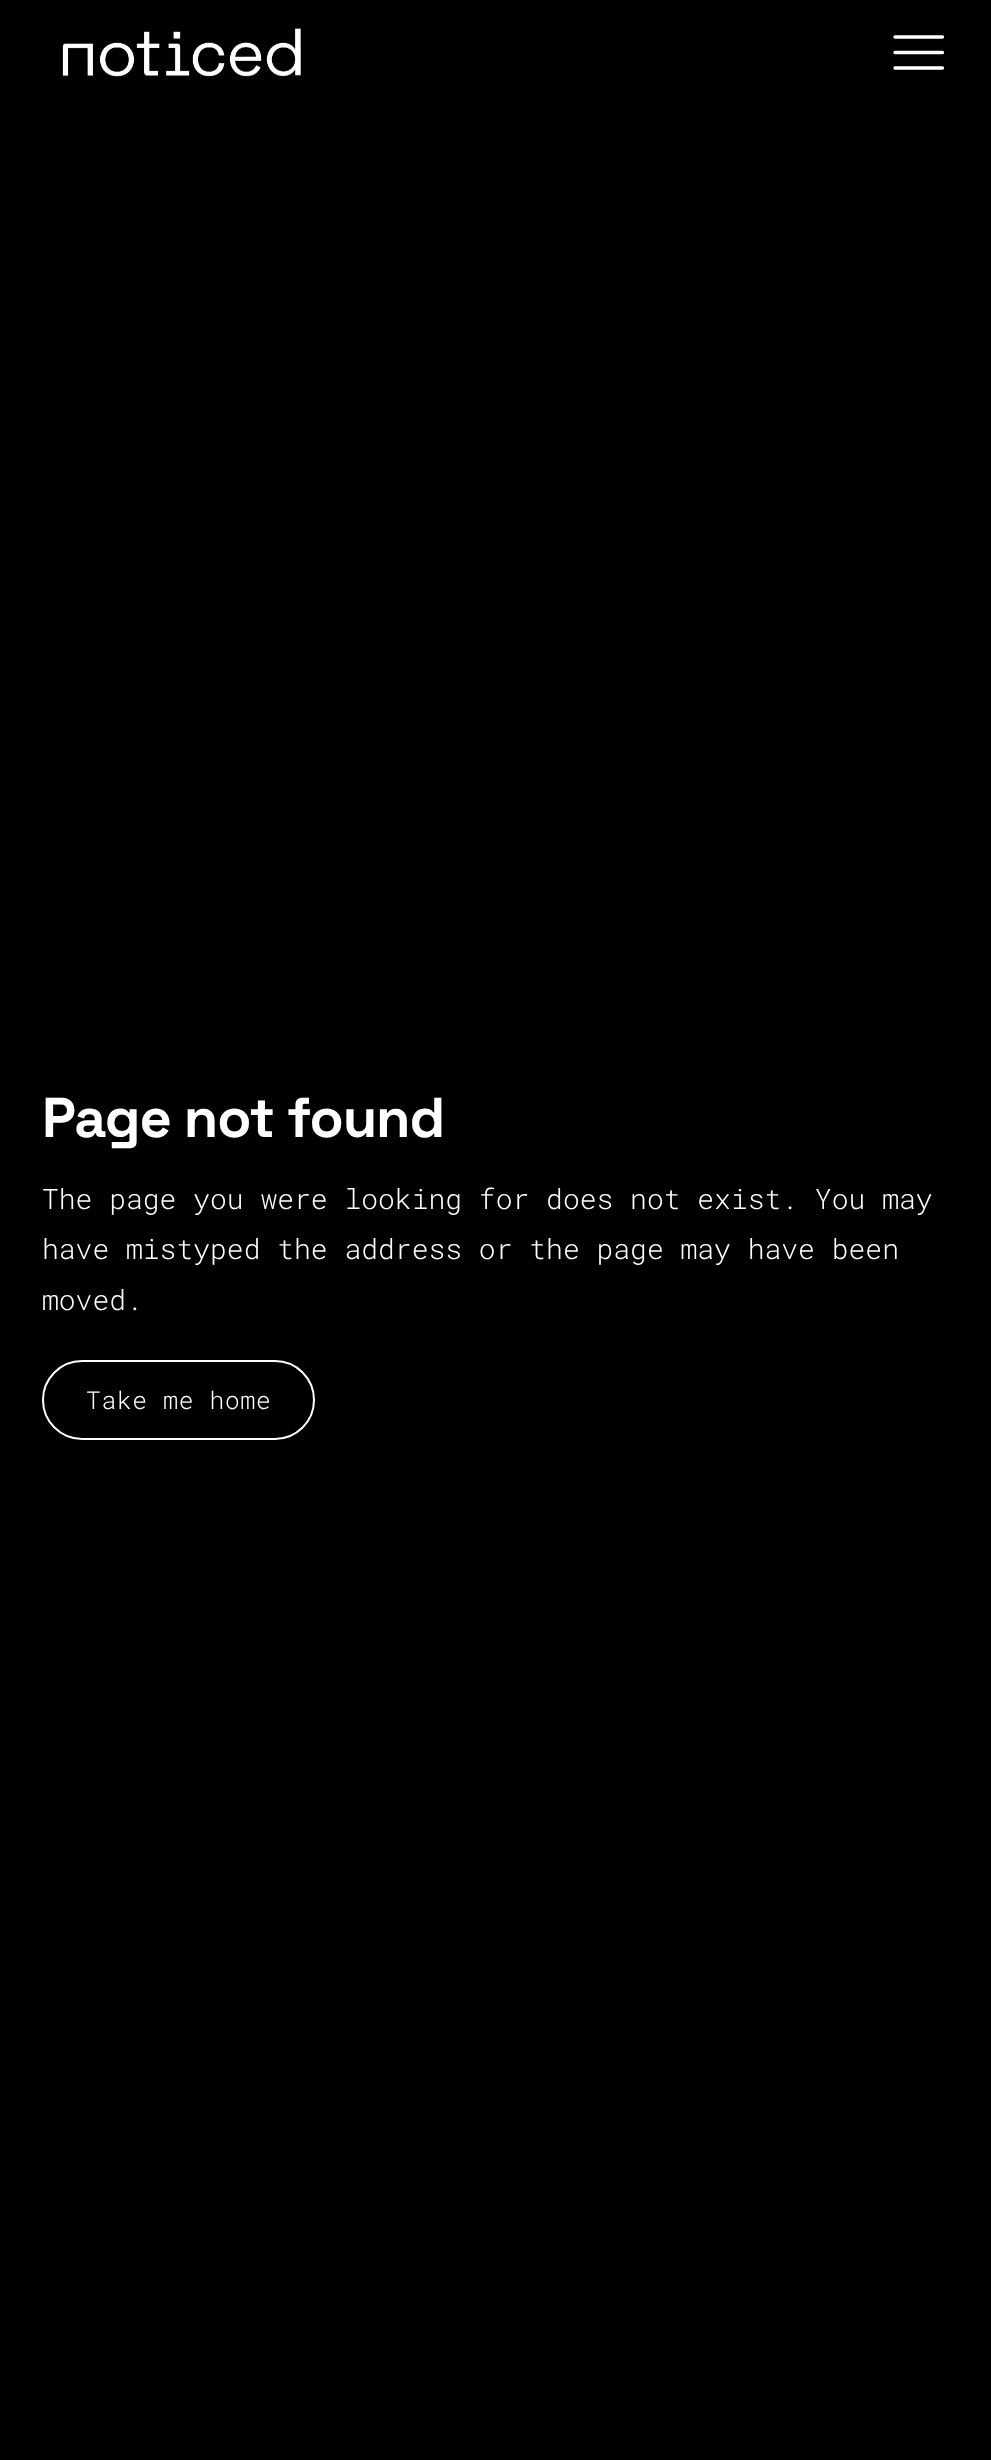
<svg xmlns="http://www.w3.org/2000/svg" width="991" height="2460">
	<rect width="100%" height="100%" fill="#000000" />
	<image x="62" y="28" width="239" height="49" href="assets/img1.png" />
	<path d="M895 52.5H942.5M895 37H942.5M895 68H942.5" fill="none" stroke="#FFFFFF" stroke-width="3.3" stroke-linecap="round" stroke-linejoin="round" />
	<text x="42" y="1137" font-family="Space Grotesk" font-size="56" font-weight="700" letter-spacing="-1.1" fill="#FFFFFF">Page not found</text>
	<g font-family="Roboto Mono" font-size="28" font-weight="300" fill="#FFFFFF">
		<text x="42" y="1209">The page you were looking for does not exist. You may</text>
		<text x="42" y="1259">have mistyped the address or the page may have been</text>
		<text x="42" y="1310">moved.</text>
	</g>
	<rect x="43" y="1361" width="271" height="78" rx="39" fill="none" stroke="#FFFFFF" stroke-width="2" />
	<text x="86" y="1409" font-family="Roboto Mono" font-size="24.5" font-weight="300" letter-spacing="0.75" fill="#FFFFFF">Take me home</text>
</svg>
